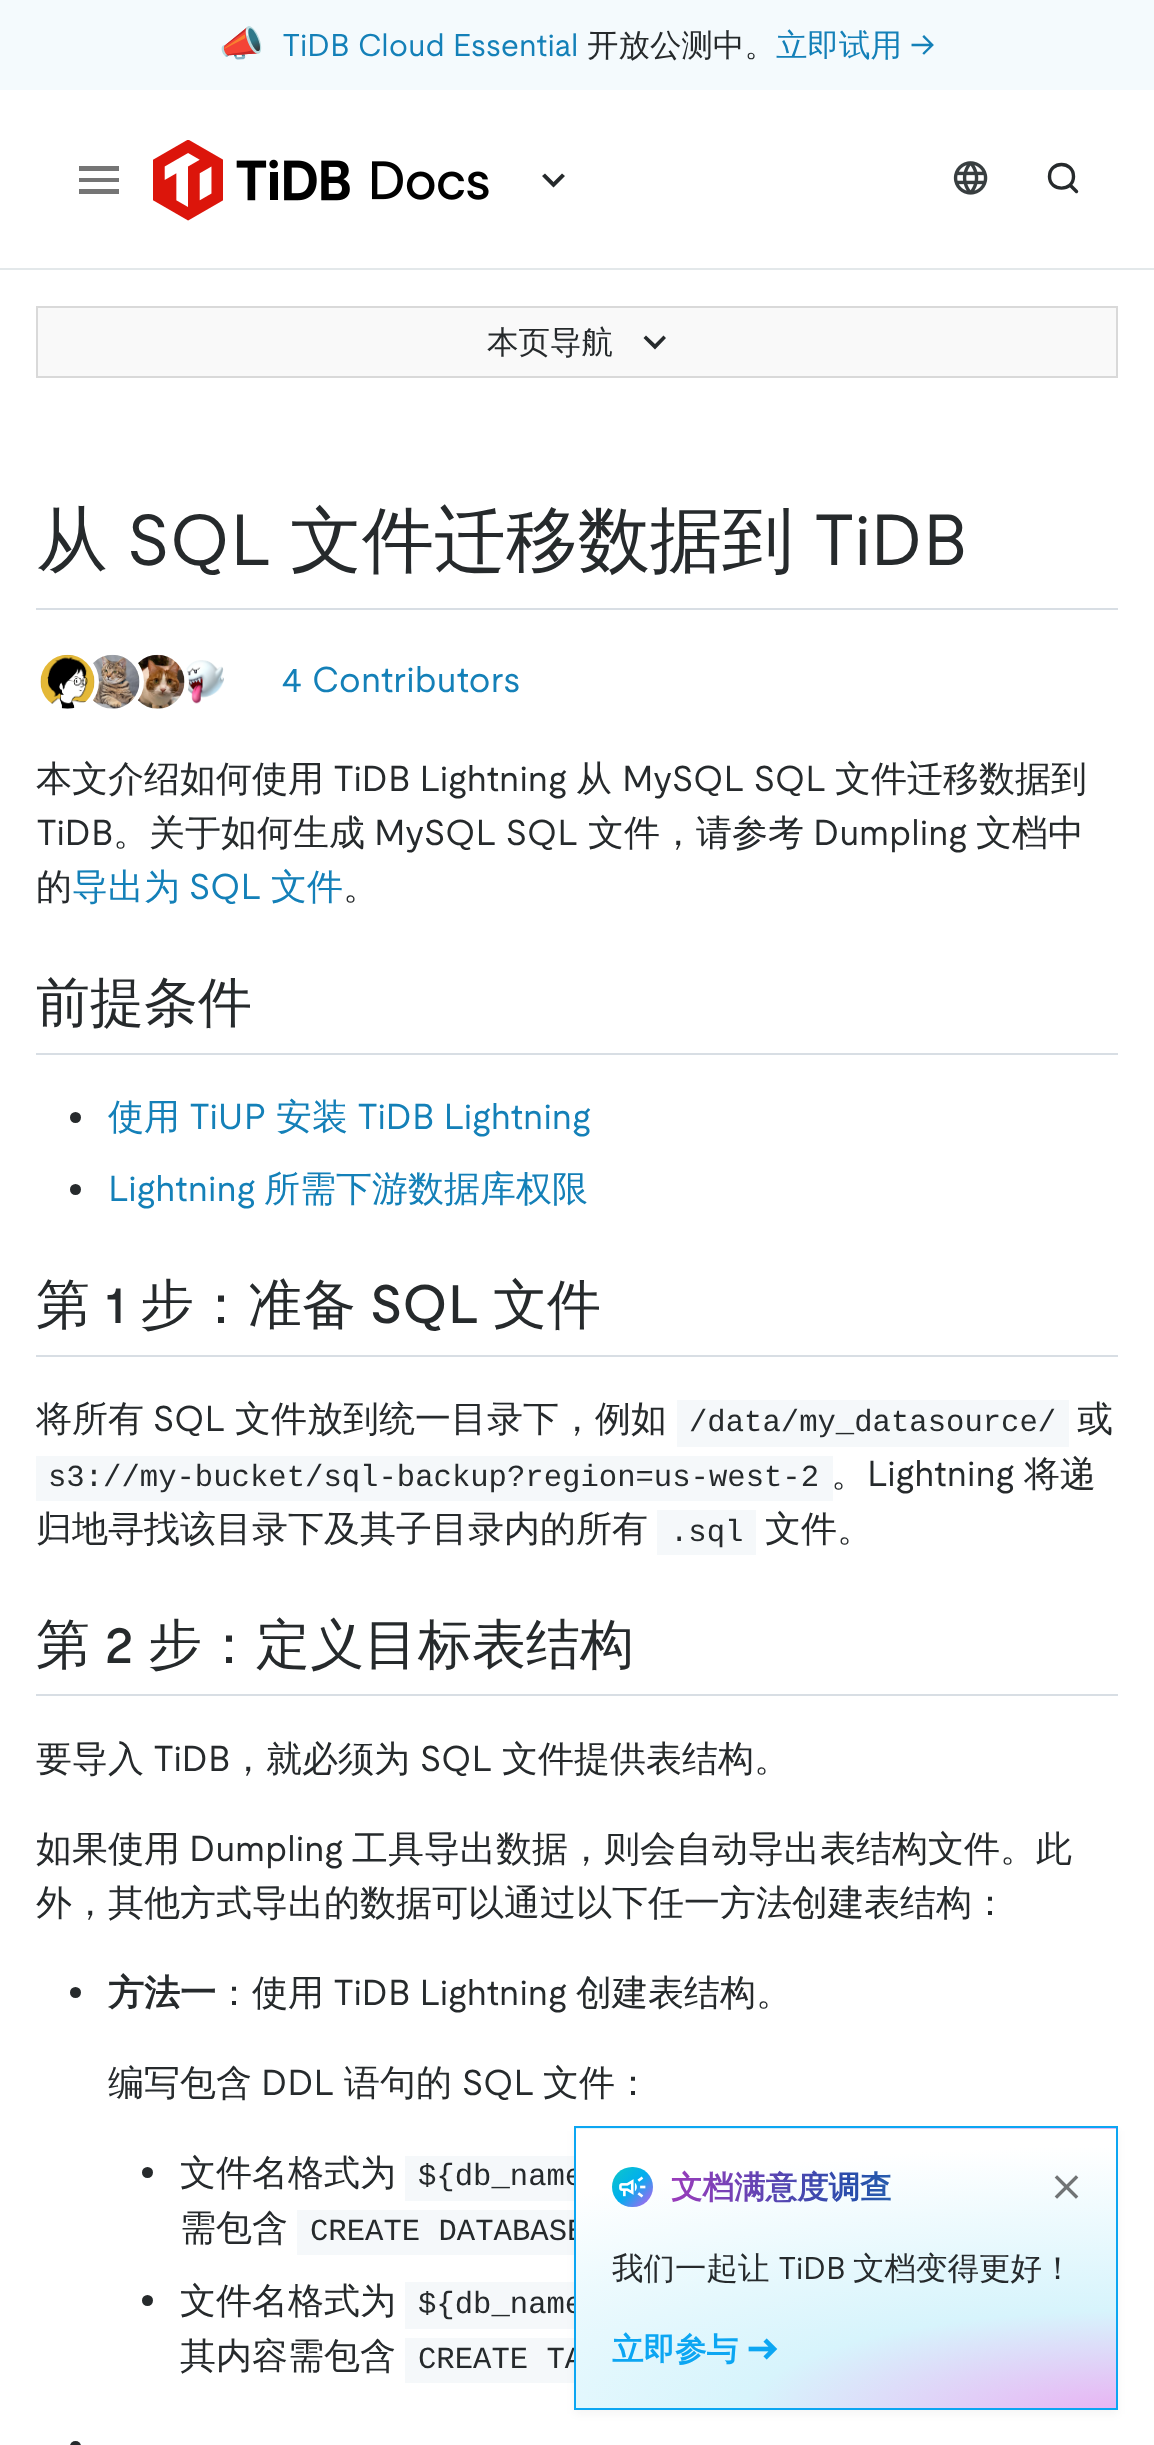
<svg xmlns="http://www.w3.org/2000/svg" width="1154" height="2445">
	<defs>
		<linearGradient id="g1" gradientUnits="userSpaceOnUse" x1="671" y1="2187" x2="1035" y2="2187"><stop offset="0" stop-color="#9A3CBB" /><stop offset="0.5" stop-color="#284DAB" /><stop offset="1" stop-color="#2D9BB7" /></linearGradient>
		<radialGradient id="g2" gradientUnits="userSpaceOnUse" cx="0" cy="0" r="1" gradientTransform="matrix(978 0 0 270 1125 2137)"><stop offset="0" stop-color="#E9B0F2" /><stop offset="0.39" stop-color="#D6F4FB" /><stop offset="1" stop-color="#FFFFFF" /></radialGradient>
		<radialGradient id="g3" gradientUnits="userSpaceOnUse" cx="0" cy="0" r="1" gradientTransform="matrix(978 0 0 270 1125 2416)"><stop offset="0" stop-color="#E9B0F3" /><stop offset="0.39" stop-color="#D7F4FC" /><stop offset="1" stop-color="#FFFFFF" /></radialGradient>
		<linearGradient id="g4" gradientUnits="userSpaceOnUse" x1="612" y1="2167" x2="653" y2="2207"><stop offset="0" stop-color="#0FC7C7" /><stop offset="0.5" stop-color="#00AEEF" /><stop offset="1" stop-color="#CA5AF0" /></linearGradient>
	</defs>
	<rect width="100%" height="100%" fill="#FFFFFF" />
	<rect x="0" y="0" width="1154" height="90" fill="#F4FAFD" />
	<text x="219" y="56" font-family="Noto Color Emoji" font-size="36" fill="#262A2C">📣</text>
	<text x="282" y="56" font-family="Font" font-size="31.5" fill="#1480B8">TiDB Cloud Essential</text>
	<text x="587" y="56" font-family="WenQuanYi Zen Hei" font-size="31.5" font-weight="500" fill="#262A2C">开放公测中。</text>
	<text x="776" y="56" font-family="WenQuanYi Zen Hei" font-size="31.5" font-weight="500" fill="#1480B8">立即试用</text>
	<text x="910" y="56" font-family="Font" font-size="31.5" fill="#1480B8">→</text>
	<rect x="0" y="268" width="1154" height="2" fill="#E3E8EA" />
	<path d="M79 194H119V189H79ZM79 182H119V178H79ZM79 166V171H119V166Z" fill="#757575" />
	<image x="153" y="140" width="336" height="81" href="assets/img1.png" />
	<path d="M545 173.5L553.5 182L562 173.5L565 176L553.5 187.5L542 176Z" fill="#262A2C" />
	<image x="953" y="161" width="35" height="34" href="assets/img2.png" />
	<path d="M1076.5 191.5L1070 185M1073.5 176.5C1073.5 192 1049.5 192 1049.5 176.5C1049.5 160.5 1073.5 160.5 1073.5 176.5Z" fill="none" stroke="#262A2C" stroke-width="3.4" stroke-linecap="round" stroke-linejoin="round" />
	<rect x="37" y="307" width="1080" height="70" fill="#F9F9F9" stroke="#D9D9D9" stroke-width="2" />
	<text x="487" y="353" font-family="WenQuanYi Zen Hei" font-size="31.5" font-weight="500" fill="#262A2C">本页导航</text>
	<path d="M646 335.5L655 344L663.5 335.5L666 338L655 349.5L643.5 338Z" fill="#262A2C" />
	<rect x="36" y="608" width="1082" height="2" fill="#D8DEE4" />
	<text x="36" y="565" font-family="WenQuanYi Zen Hei" font-size="72" font-weight="500" fill="#262A2C">从</text>
	<text x="127" y="565" font-family="Font" font-size="72" fill="#262A2C">SQL</text>
	<text x="290" y="565" font-family="WenQuanYi Zen Hei" font-size="72" font-weight="500" fill="#262A2C">文件迁移数据到</text>
	<text x="813" y="565" font-family="Font" font-size="72" fill="#262A2C">TiDB</text>
	<image x="186" y="660" width="38" height="44" href="assets/img6.png" />
	<circle cx="157.5" cy="681.5" r="29" fill="none" stroke="#FFFFFF" stroke-width="5" />
	<image x="135" y="654" width="50" height="55" href="assets/img5.png" />
	<circle cx="112.5" cy="681.5" r="29" fill="none" stroke="#FFFFFF" stroke-width="5" />
	<circle cx="113" cy="682" r="27" fill="#FFFFFF" />
	<image x="90" y="654" width="50" height="55" href="assets/img4.png" />
	<circle cx="67.5" cy="681.5" r="29" fill="none" stroke="#FFFFFF" stroke-width="5" />
	<circle cx="68" cy="682" r="27" fill="#FFFFFF" />
	<image x="40" y="654" width="55" height="55" href="assets/img3.png" />
	<text x="281" y="692" font-family="Font" font-size="36" fill="#1480B8">4 Contributors</text>
	<text x="36" y="791" font-family="WenQuanYi Zen Hei" font-size="36" font-weight="500" fill="#262A2C">本文介绍如何使用</text>
	<text x="333" y="791" font-family="Font" font-size="36" fill="#262A2C">TiDB Lightning</text>
	<text x="576" y="791" font-family="WenQuanYi Zen Hei" font-size="36" font-weight="500" fill="#262A2C">从</text>
	<text x="622" y="791" font-family="Font" font-size="36" fill="#262A2C">MySQL SQL</text>
	<text x="835" y="791" font-family="WenQuanYi Zen Hei" font-size="36" font-weight="500" fill="#262A2C">文件迁移数据到</text>
	<text x="36" y="845" font-family="Font" font-size="36" fill="#262A2C">TiDB</text>
	<text x="113" y="845" font-family="WenQuanYi Zen Hei" font-size="36" font-weight="500" fill="#262A2C">。关于如何生成</text>
	<text x="374" y="845" font-family="Font" font-size="36" fill="#262A2C">MySQL SQL</text>
	<text x="588" y="845" font-family="WenQuanYi Zen Hei" font-size="36" font-weight="500" fill="#262A2C">文件，请参考</text>
	<text x="813" y="845" font-family="Font" font-size="36" fill="#262A2C">Dumpling</text>
	<g font-family="WenQuanYi Zen Hei" font-size="36" font-weight="500" fill="#262A2C">
		<text x="976" y="845">文档中</text>
		<text x="36" y="899">的</text>
	</g>
	<text x="72" y="899" font-family="WenQuanYi Zen Hei" font-size="36" font-weight="500" fill="#1480B8">导出为</text>
	<text x="189" y="899" font-family="Font" font-size="36" fill="#1480B8">SQL</text>
	<text x="271" y="899" font-family="WenQuanYi Zen Hei" font-size="36" font-weight="500" fill="#1480B8">文件</text>
	<text x="343" y="899" font-family="WenQuanYi Zen Hei" font-size="36" font-weight="500" fill="#262A2C">。</text>
	<rect x="36" y="1053" width="1082" height="2" fill="#D8DEE4" />
	<text x="36" y="1021" font-family="WenQuanYi Zen Hei" font-size="54" font-weight="500" fill="#262A2C">前提条件</text>
	<circle cx="75.5" cy="1117.5" r="5.5" fill="#262A2C" />
	<text x="108" y="1129" font-family="WenQuanYi Zen Hei" font-size="36" font-weight="500" fill="#1480B8">使用</text>
	<text x="189" y="1129" font-family="Font" font-size="36" fill="#1480B8">TiUP</text>
	<text x="276" y="1129" font-family="WenQuanYi Zen Hei" font-size="36" font-weight="500" fill="#1480B8">安装</text>
	<text x="357" y="1129" font-family="Font" font-size="36" fill="#1480B8">TiDB Lightning</text>
	<circle cx="75.5" cy="1189.5" r="5.5" fill="#262A2C" />
	<text x="108" y="1201" font-family="Font" font-size="36" fill="#1480B8">Lightning</text>
	<text x="264" y="1201" font-family="WenQuanYi Zen Hei" font-size="36" font-weight="500" fill="#1480B8">所需下游数据库权限</text>
	<rect x="36" y="1355" width="1082" height="2" fill="#D8DEE4" />
	<text x="36" y="1323" font-family="WenQuanYi Zen Hei" font-size="54" font-weight="500" fill="#262A2C">第</text>
	<text x="104" y="1323" font-family="Font" font-size="54" font-weight="500" fill="#262A2C">1</text>
	<text x="140" y="1323" font-family="WenQuanYi Zen Hei" font-size="54" font-weight="500" fill="#262A2C">步：准备</text>
	<text x="370" y="1323" font-family="Font" font-size="54" font-weight="500" fill="#262A2C">SQL</text>
	<text x="493" y="1323" font-family="WenQuanYi Zen Hei" font-size="54" font-weight="500" fill="#262A2C">文件</text>
	<text x="36" y="1431" font-family="WenQuanYi Zen Hei" font-size="36" font-weight="500" fill="#262A2C">将所有</text>
	<text x="153" y="1431" font-family="Font" font-size="36" fill="#262A2C">SQL</text>
	<text x="235" y="1431" font-family="WenQuanYi Zen Hei" font-size="36" font-weight="500" fill="#262A2C">文件放到统一目录下，例如</text>
	<rect x="677" y="1400" width="392" height="47" fill="#F5F8FA" />
	<text x="689" y="1431" font-family="Liberation Mono" font-size="30.6" fill="#262A2C">/data/my_datasource/</text>
	<text x="1077" y="1431" font-family="WenQuanYi Zen Hei" font-size="36" font-weight="500" fill="#262A2C">或</text>
	<rect x="36" y="1456" width="797" height="45" fill="#F5F8FA" />
	<text x="48" y="1486" font-family="Liberation Mono" font-size="30.6" fill="#262A2C">s3://my-bucket/sql-backup?region=us-west-2</text>
	<text x="831" y="1486" font-family="WenQuanYi Zen Hei" font-size="36" font-weight="500" fill="#262A2C">。</text>
	<text x="867" y="1486" font-family="Font" font-size="36" fill="#262A2C">Lightning</text>
	<g font-family="WenQuanYi Zen Hei" font-size="36" font-weight="500" fill="#262A2C">
		<text x="1024" y="1486">将递</text>
		<text x="36" y="1541">归地寻找该目录下及其子目录内的所有</text>
	</g>
	<rect x="657" y="1510" width="99" height="45" fill="#F5F8FA" />
	<text x="670" y="1541" font-family="Liberation Mono" font-size="30.6" fill="#262A2C">.sql</text>
	<text x="765" y="1541" font-family="WenQuanYi Zen Hei" font-size="36" font-weight="500" fill="#262A2C">文件。</text>
	<rect x="36" y="1694" width="1082" height="2" fill="#D8DEE4" />
	<text x="36" y="1663" font-family="WenQuanYi Zen Hei" font-size="54" font-weight="500" fill="#262A2C">第</text>
	<text x="104" y="1663" font-family="Font" font-size="54" font-weight="500" fill="#262A2C">2</text>
	<text x="148" y="1663" font-family="WenQuanYi Zen Hei" font-size="54" font-weight="500" fill="#262A2C">步：定义目标表结构</text>
	<text x="36" y="1771" font-family="WenQuanYi Zen Hei" font-size="36" font-weight="500" fill="#262A2C">要导入</text>
	<text x="153" y="1771" font-family="Font" font-size="36" fill="#262A2C">TiDB</text>
	<text x="230" y="1771" font-family="WenQuanYi Zen Hei" font-size="36" font-weight="500" fill="#262A2C">，就必须为</text>
	<text x="420" y="1771" font-family="Font" font-size="36" fill="#262A2C">SQL</text>
	<g font-family="WenQuanYi Zen Hei" font-size="36" font-weight="500" fill="#262A2C">
		<text x="502" y="1771">文件提供表结构。</text>
		<text x="36" y="1861">如果使用</text>
	</g>
	<text x="189" y="1861" font-family="Font" font-size="36" fill="#262A2C">Dumpling</text>
	<g font-family="WenQuanYi Zen Hei" font-size="36" font-weight="500" fill="#262A2C">
		<text x="352" y="1861">工具导出数据，则会自动导出表结构文件。此</text>
		<text x="36" y="1915">外，其他方式导出的数据可以通过以下任一方法创建表结构：</text>
	</g>
	<circle cx="75.5" cy="1992.5" r="5.5" fill="#262A2C" />
	<text x="108" y="2005" font-family="WenQuanYi Zen Hei" font-size="36" font-weight="700" fill="#262A2C">方法一</text>
	<text x="216" y="2005" font-family="WenQuanYi Zen Hei" font-size="36" font-weight="500" fill="#262A2C">：使用</text>
	<text x="333" y="2005" font-family="Font" font-size="36" fill="#262A2C">TiDB Lightning</text>
	<g font-family="WenQuanYi Zen Hei" font-size="36" font-weight="500" fill="#262A2C">
		<text x="576" y="2005">创建表结构。</text>
		<text x="108" y="2095">编写包含</text>
	</g>
	<text x="261" y="2095" font-family="Font" font-size="36" fill="#262A2C">DDL</text>
	<text x="344" y="2095" font-family="WenQuanYi Zen Hei" font-size="36" font-weight="500" fill="#262A2C">语句的</text>
	<text x="462" y="2095" font-family="Font" font-size="36" fill="#262A2C">SQL</text>
	<text x="543" y="2095" font-family="WenQuanYi Zen Hei" font-size="36" font-weight="500" fill="#262A2C">文件：</text>
	<circle cx="147.5" cy="2172.5" r="5.5" fill="#262A2C" />
	<text x="180" y="2185" font-family="WenQuanYi Zen Hei" font-size="36" font-weight="500" fill="#262A2C">文件名格式为</text>
	<rect x="405" y="2156" width="169" height="45" fill="#F5F8FA" />
	<text x="418" y="2185" font-family="Liberation Mono" font-size="30.6" fill="#262A2C">${db_name</text>
	<text x="180" y="2240" font-family="WenQuanYi Zen Hei" font-size="36" font-weight="500" fill="#262A2C">需包含</text>
	<rect x="297" y="2210" width="277" height="45" fill="#F5F8FA" />
	<text x="310" y="2240" font-family="Liberation Mono" font-size="30.6" fill="#262A2C">CREATE DATABASE</text>
	<circle cx="147.5" cy="2300.5" r="5.5" fill="#262A2C" />
	<text x="180" y="2313" font-family="WenQuanYi Zen Hei" font-size="36" font-weight="500" fill="#262A2C">文件名格式为</text>
	<rect x="405" y="2282" width="169" height="47" fill="#F5F8FA" />
	<text x="418" y="2313" font-family="Liberation Mono" font-size="30.6" fill="#262A2C">${db_name</text>
	<text x="180" y="2368" font-family="WenQuanYi Zen Hei" font-size="36" font-weight="500" fill="#262A2C">其内容需包含</text>
	<rect x="405" y="2338" width="169" height="45" fill="#F5F8FA" />
	<text x="418" y="2368" font-family="Liberation Mono" font-size="30.6" fill="#262A2C">CREATE TA</text>
	<rect x="70" y="2441" width="11" height="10" rx="5.5" fill="#262A2C" />
	<rect x="574" y="2131" width="544" height="283" fill="#000000" fill-opacity="0.04" filter="blur(4.5px)" />
	<rect x="576" y="2128" width="540" height="1" fill="url(#g2)" />
	<rect x="576" y="2129" width="540" height="279" fill="url(#g3)" />
	<rect x="575" y="2127" width="542" height="282" fill="none" stroke="#0CA6F2" stroke-width="2" />
	<rect x="612" y="2167" width="41" height="40" rx="20" fill="url(#g4)" />
	<image x="619" y="2176" width="27" height="22" href="assets/img7.png" />
	<text x="671" y="2198" font-family="WenQuanYi Zen Hei" font-size="31.5" font-weight="700" fill="url(#g1)">文档满意度调查</text>
	<image x="1054" y="2175" width="25" height="24" href="assets/img8.png" />
	<text x="612" y="2279" font-family="WenQuanYi Zen Hei" font-size="31.5" font-weight="500" fill="#262A2C">我们一起让</text>
	<text x="778" y="2279" font-family="Font" font-size="31.5" fill="#262A2C">TiDB</text>
	<text x="853" y="2279" font-family="WenQuanYi Zen Hei" font-size="31.5" font-weight="500" fill="#262A2C">文档变得更好！</text>
	<text x="612" y="2360" font-family="WenQuanYi Zen Hei" font-size="31.5" font-weight="700" fill="#0CA6F2">立即参与</text>
	<image x="748" y="2338" width="30" height="22" href="assets/img9.png" />
</svg>
